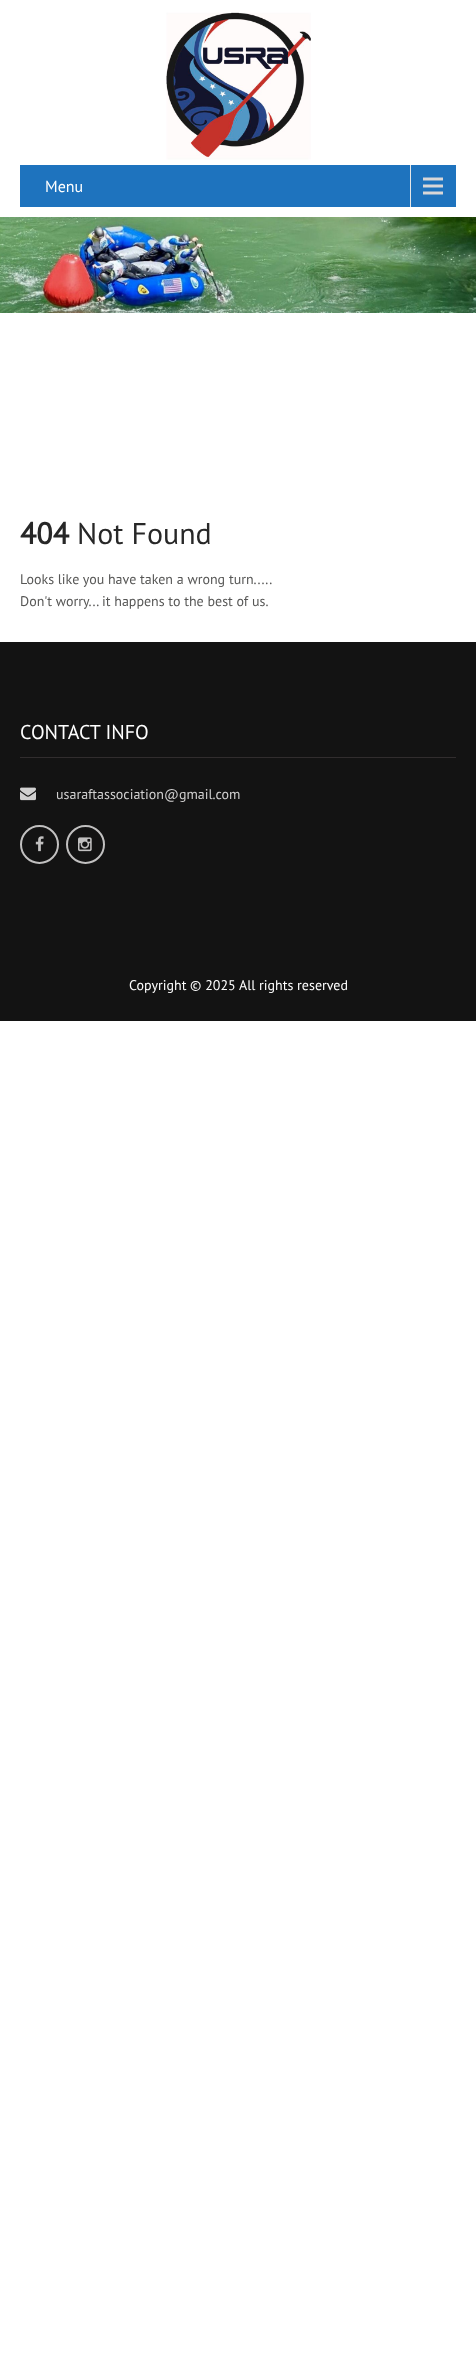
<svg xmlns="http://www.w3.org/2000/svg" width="476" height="2361">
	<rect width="100%" height="100%" fill="#FFFFFF" />
	<image x="166" y="12" width="145" height="148" href="assets/img1.png" />
	<rect x="20" y="165" width="436" height="42" fill="#1E73BE" />
	<image x="410" y="165" width="33" height="42" href="assets/img2.png" />
	<text x="45" y="192" font-family="PT Sans" font-size="16" fill="#FFFFFF">Menu</text>
	<image x="0" y="217" width="476" height="96" href="assets/img3.png" />
	<text x="20" y="544" font-family="PT Sans" font-size="30" font-weight="700" fill="#272727">404</text>
	<text x="77" y="544" font-family="PT Sans" font-size="30" fill="#272727">Not Found</text>
	<g font-family="PT Sans" font-size="14" fill="#575756">
		<text x="20" y="584">Looks like you have taken a wrong turn.....</text>
		<text x="20" y="606">Don't worry... it happens to the best of us.</text>
	</g>
	<rect x="0" y="642" width="476" height="379" fill="#131313" />
	<rect x="20" y="757" width="436" height="1" fill="#312D2E" />
	<text x="20" y="739" font-family="PT Sans" font-size="20" fill="#FFFFFF">CONTACT INFO</text>
	<image x="20" y="787" width="16" height="14" href="assets/img4.png" />
	<text x="56" y="799" font-family="PT Sans" font-size="14" fill="#D1D0D0">usaraftassociation@gmail.com</text>
	<circle cx="39.5" cy="844.5" r="18.5" fill="none" stroke="#C1C0C0" stroke-width="2" />
	<image x="35" y="836" width="9" height="16" href="assets/img5.png" />
	<circle cx="85.5" cy="844.5" r="18.5" fill="none" stroke="#C1C0C0" stroke-width="2" />
	<image x="78" y="837" width="14" height="15" href="assets/img6.png" />
	<text x="129" y="990" font-family="PT Sans" font-size="14" fill="#FFFFFF">Copyright © 2025 All rights reserved</text>
</svg>
